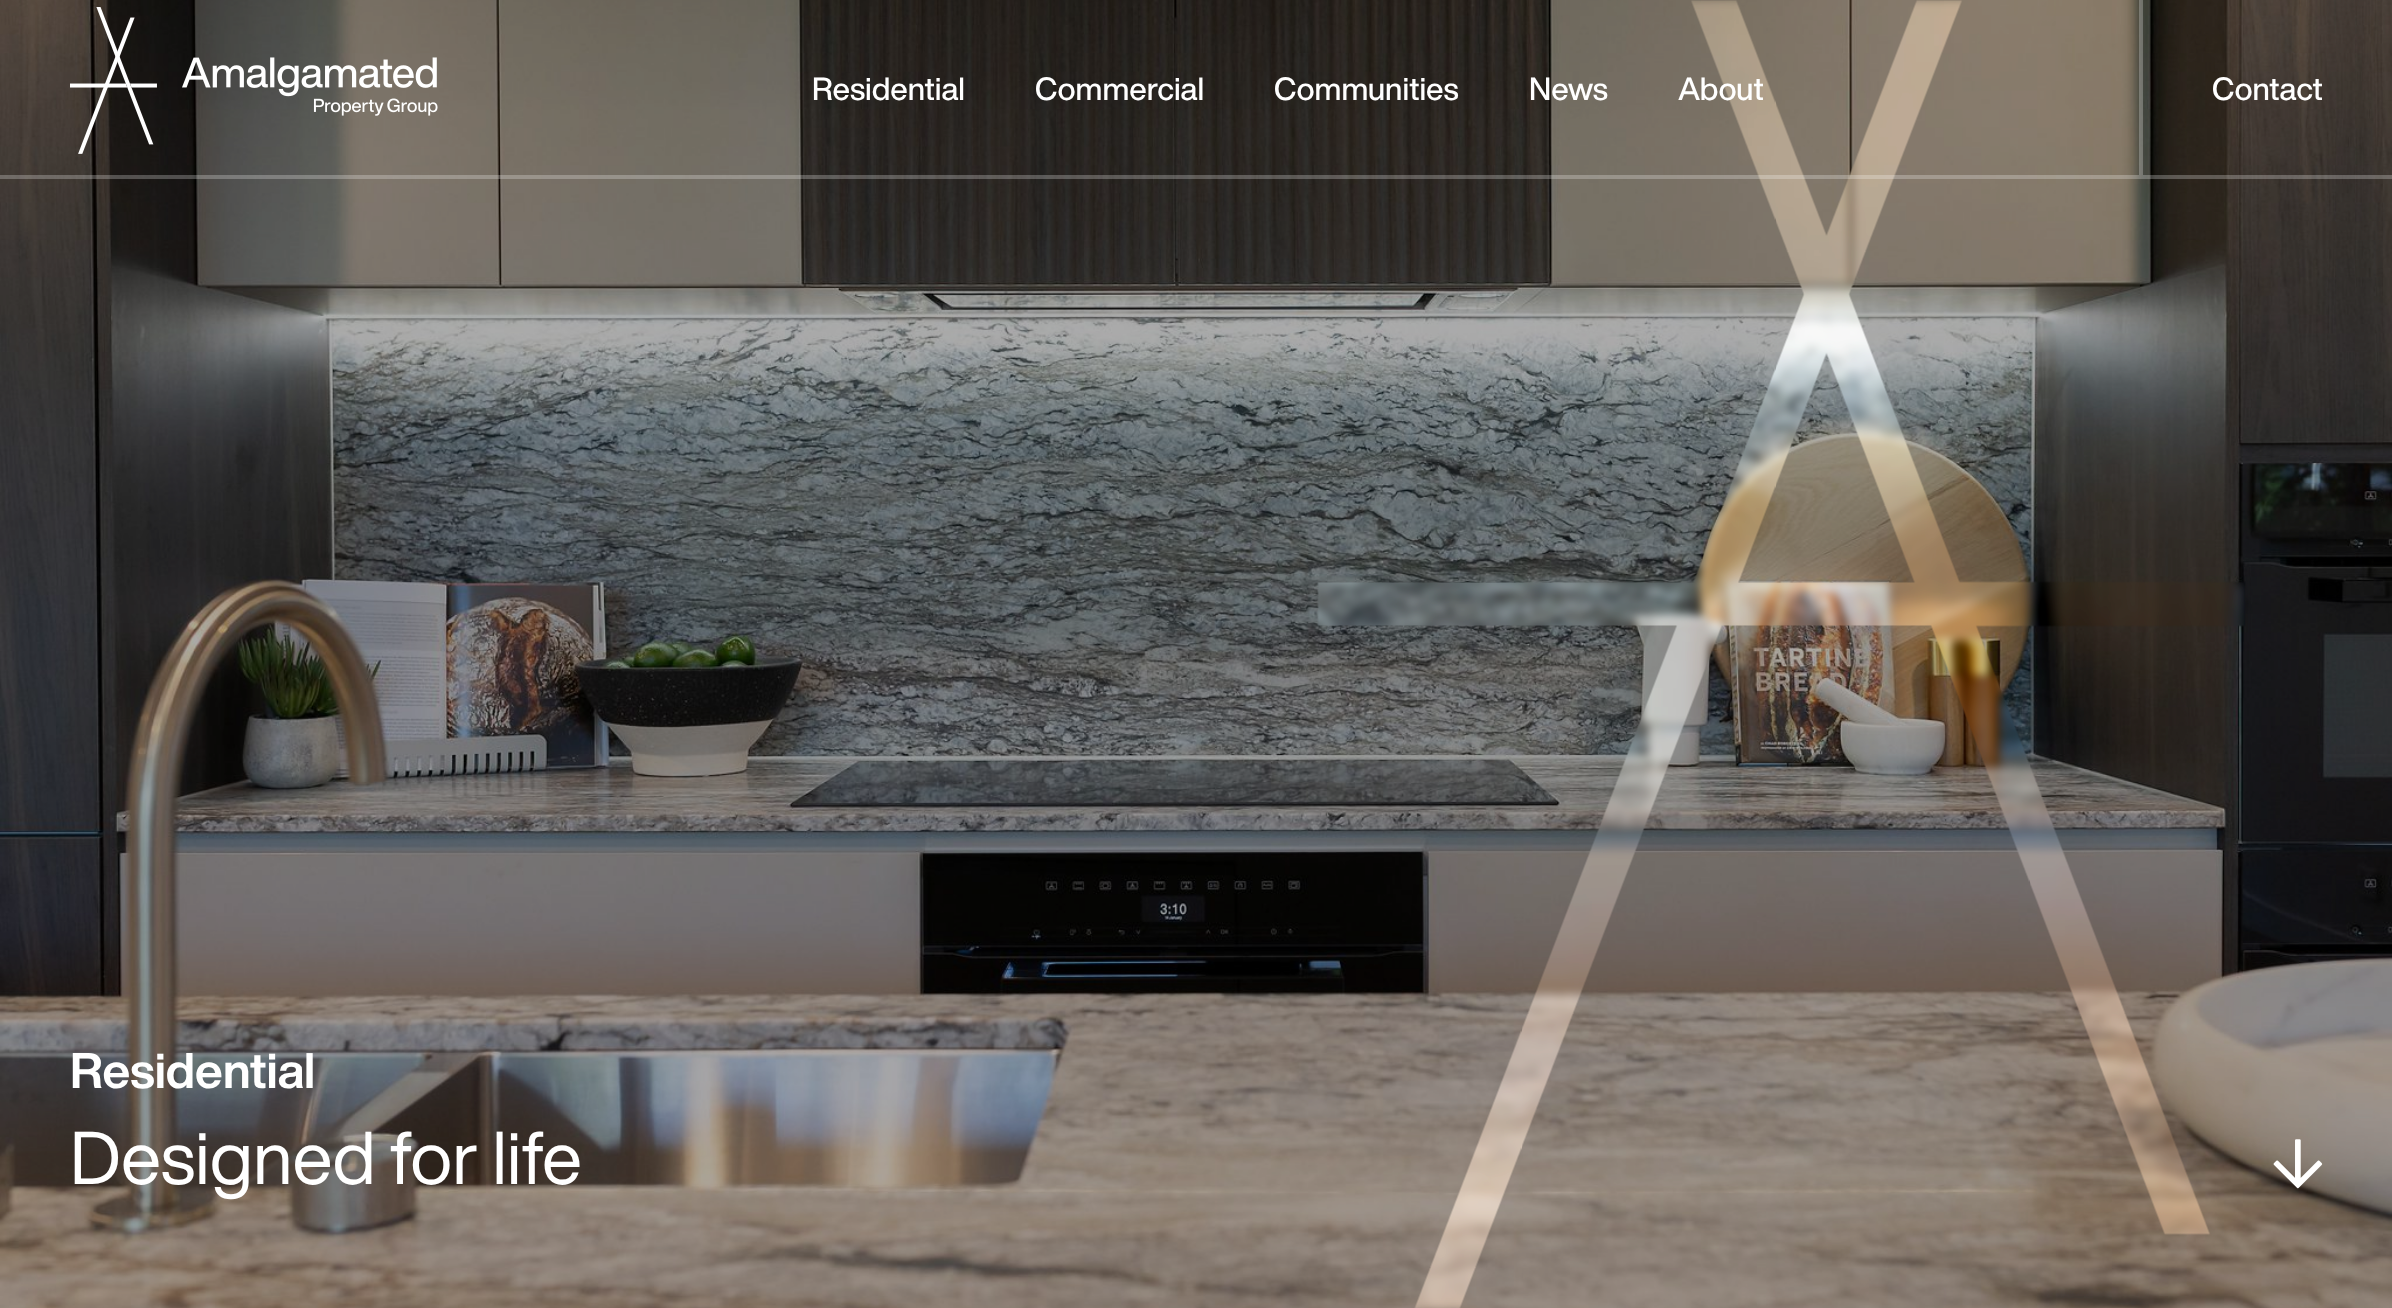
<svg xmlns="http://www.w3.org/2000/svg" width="2392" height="1308">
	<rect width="100%" height="100%" fill="#FFFFFF" />
	<image x="0" y="0" width="2392" height="1308" href="assets/img2.png" />
	<image x="1317" y="0" width="929" height="1308" href="assets/img4.png" />
	<rect x="0" y="175" width="2392" height="4" fill="#FFFFFF" fill-opacity="0.25" />
	<image x="70" y="7" width="368" height="147" href="assets/img1.png" />
	<g font-family="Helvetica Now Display" font-size="31.5" font-weight="500" fill="#FFFFFF">
		<text x="812" y="100">Residential</text>
		<text x="1035" y="100">Commercial</text>
		<text x="1274" y="100">Communities</text>
		<text x="1529" y="100">News</text>
		<text x="1678" y="100">About</text>
	</g>
	<rect x="2139" y="0" width="4" height="175" fill="#FFFFFF" fill-opacity="0.25" />
	<text x="2212" y="100" font-family="Helvetica Now Display" font-size="31.5" font-weight="500" fill="#FFFFFF">Contact</text>
	<text x="70" y="1088" font-family="Helvetica Now Display" font-size="49" font-weight="700" fill="#FFFFFF">Residential</text>
	<text x="70" y="1184" font-family="Helvetica Now Display" font-size="73.5" fill="#FFFFFF">Designed for life</text>
	<image x="2273" y="1139" width="50" height="50" href="assets/img3.png" />
</svg>
